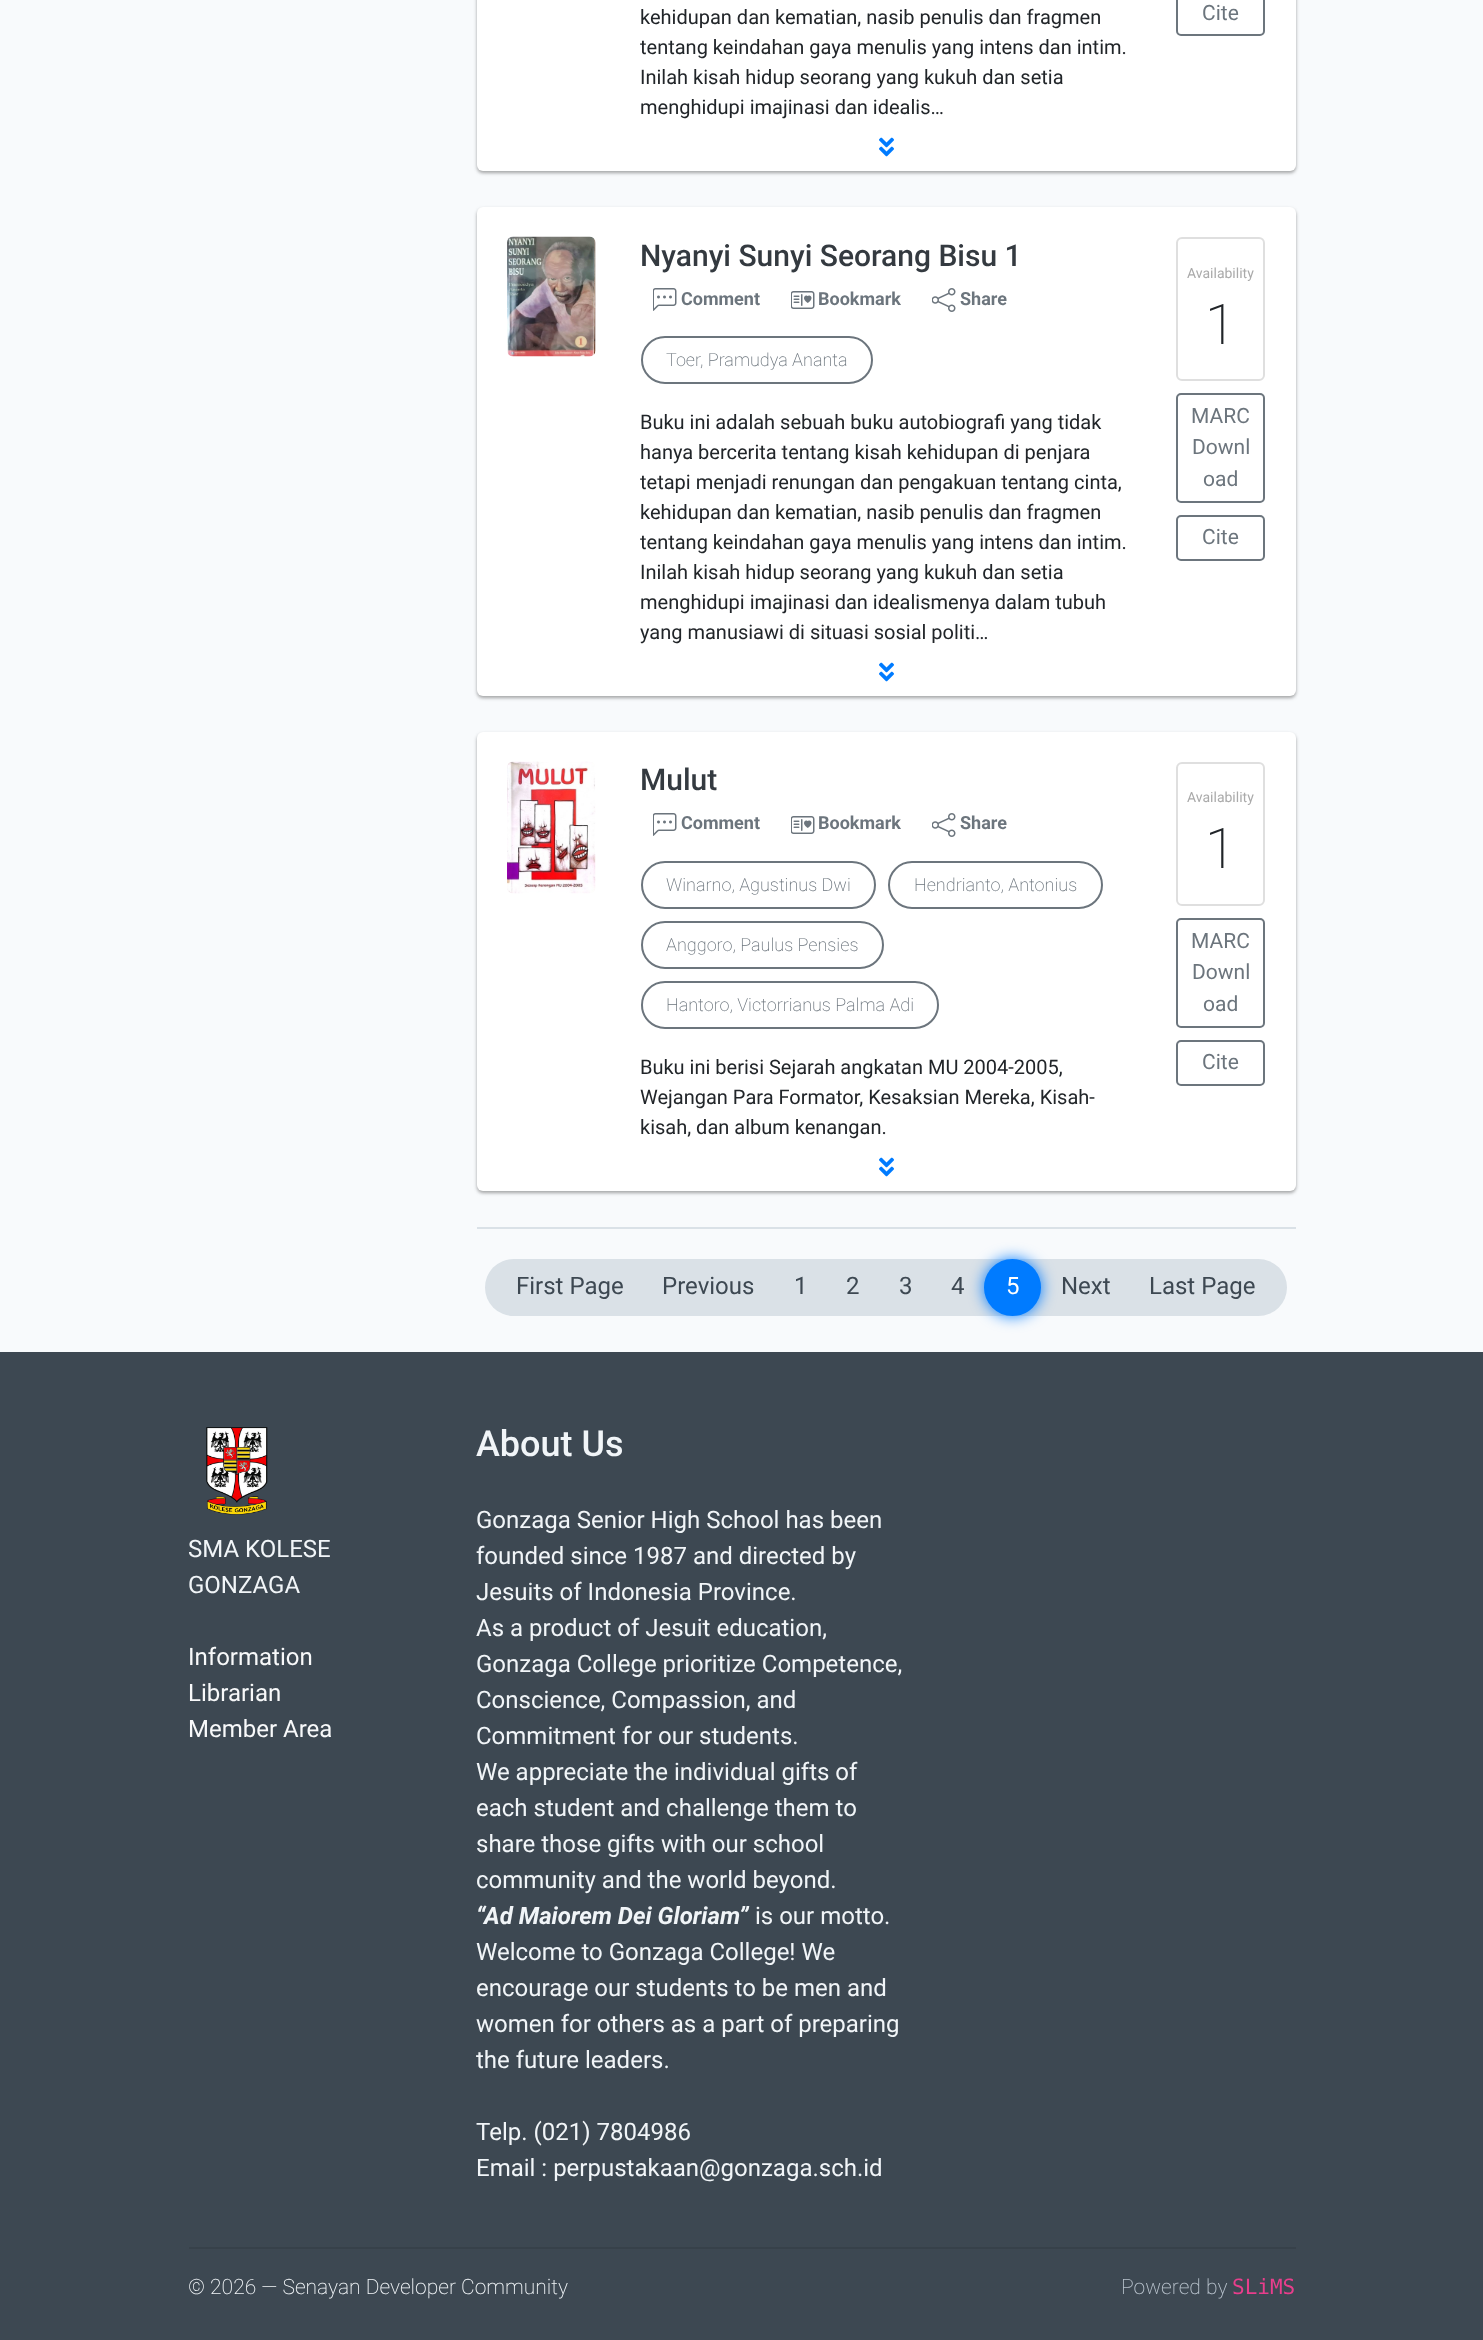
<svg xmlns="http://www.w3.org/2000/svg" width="1483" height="2340">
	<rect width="100%" height="100%" fill="#F8FAFC" />
	<rect x="477" y="-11" width="819" height="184" rx="6" fill="#000000" fill-opacity="0.24" filter="blur(1.5px)" />
	<rect x="477" y="-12" width="819" height="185" rx="6" fill="#000000" fill-opacity="0.12" filter="blur(2px)" />
	<rect x="477" y="-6" width="819" height="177" rx="6" fill="#FFFFFF" />
	<g font-family="Roboto" font-size="20" fill="#212529">
		<text x="640" y="24">kehidupan dan kematian, nasib penulis dan fragmen</text>
		<text x="640" y="54">tentang keindahan gaya menulis yang intens dan intim.</text>
		<text x="640" y="84">Inilah kisah hidup seorang yang kukuh dan setia</text>
		<text x="640" y="114">menghidupi imajinasi dan idealis…</text>
	</g>
	<rect x="1177" y="-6" width="87" height="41" rx="4" fill="none" stroke="#6C757D" stroke-width="2" />
	<text x="1202" y="20" font-family="Roboto" font-size="21" fill="#6C757D">Cite</text>
	<image x="879" y="137" width="15" height="20" href="assets/img1.png" />
	<rect x="477" y="209" width="819" height="489" rx="6" fill="#000000" fill-opacity="0.24" filter="blur(1.5px)" />
	<rect x="477" y="209" width="819" height="489" rx="6" fill="#000000" fill-opacity="0.12" filter="blur(2px)" />
	<rect x="477" y="207" width="819" height="489" rx="6" fill="#FFFFFF" />
	<image x="507" y="236" width="89" height="121" href="assets/img2.png" />
	<text x="640" y="266" font-family="Roboto" font-size="30" font-weight="500" fill="#343A40">Nyanyi Sunyi Seorang Bisu 1</text>
	<image x="653" y="288" width="24" height="23" href="assets/img3.png" />
	<text x="681" y="305" font-family="Roboto" font-size="18" font-weight="700" fill="#6C757D">Comment</text>
	<image x="791" y="291" width="24" height="18" href="assets/img4.png" />
	<text x="818" y="305" font-family="Roboto" font-size="18" font-weight="700" fill="#6C757D">Bookmark</text>
	<image x="932" y="288" width="24" height="24" href="assets/img5.png" />
	<text x="960" y="305" font-family="Roboto" font-size="18" font-weight="700" fill="#6C757D">Share</text>
	<rect x="642" y="337" width="230" height="46" rx="23" fill="none" stroke="#6C757D" stroke-width="2" />
	<text x="666" y="366" font-family="Roboto" font-size="18" font-weight="200" fill="#6C757D">Toer, Pramudya Ananta</text>
	<g font-family="Roboto" font-size="20" fill="#212529">
		<text x="640" y="429">Buku ini adalah sebuah buku autobiografi yang tidak</text>
		<text x="640" y="459">hanya bercerita tentang kisah kehidupan di penjara</text>
		<text x="640" y="489">tetapi menjadi renungan dan pengakuan tentang cinta,</text>
		<text x="640" y="519">kehidupan dan kematian, nasib penulis dan fragmen</text>
		<text x="640" y="549">tentang keindahan gaya menulis yang intens dan intim.</text>
		<text x="640" y="579">Inilah kisah hidup seorang yang kukuh dan setia</text>
		<text x="640" y="609">menghidupi imajinasi dan idealismenya dalam tubuh</text>
		<text x="640" y="639">yang manusiawi di situasi sosial politi…</text>
	</g>
	<rect x="1177" y="238" width="87" height="142" rx="5" fill="none" stroke="#DFDFDF" stroke-width="2" />
	<text x="1187" y="278" font-family="Roboto" font-size="14" fill="#AAAAAA">Availability</text>
	<text x="1205" y="344" font-family="Roboto" font-size="56" font-weight="200" fill="#212529">1</text>
	<rect x="1177" y="394" width="87" height="108" rx="4" fill="none" stroke="#6C757D" stroke-width="2" />
	<g font-family="Roboto" font-size="21" fill="#6C757D">
		<text x="1191" y="423">MARC</text>
		<text x="1192" y="454">Downl</text>
		<text x="1203" y="486">oad</text>
	</g>
	<rect x="1177" y="516" width="87" height="44" rx="4" fill="none" stroke="#6C757D" stroke-width="2" />
	<text x="1202" y="544" font-family="Roboto" font-size="21" fill="#6C757D">Cite</text>
	<image x="879" y="662" width="15" height="20" href="assets/img1.png" />
	<rect x="477" y="734" width="819" height="459" rx="6" fill="#000000" fill-opacity="0.24" filter="blur(1.5px)" />
	<rect x="477" y="734" width="819" height="459" rx="6" fill="#000000" fill-opacity="0.12" filter="blur(2px)" />
	<rect x="477" y="732" width="819" height="459" rx="6" fill="#FFFFFF" />
	<image x="507" y="761" width="89" height="133" href="assets/img6.png" />
	<text x="640" y="790" font-family="Roboto" font-size="30" font-weight="500" fill="#343A40">Mulut</text>
	<image x="653" y="813" width="24" height="23" href="assets/img3.png" />
	<text x="681" y="829" font-family="Roboto" font-size="18" font-weight="700" fill="#6C757D">Comment</text>
	<image x="791" y="816" width="24" height="18" href="assets/img4.png" />
	<text x="818" y="829" font-family="Roboto" font-size="18" font-weight="700" fill="#6C757D">Bookmark</text>
	<image x="932" y="813" width="24" height="24" href="assets/img5.png" />
	<text x="960" y="829" font-family="Roboto" font-size="18" font-weight="700" fill="#6C757D">Share</text>
	<rect x="642" y="862" width="233" height="46" rx="23" fill="none" stroke="#6C757D" stroke-width="2" />
	<text x="666" y="891" font-family="Roboto" font-size="18" font-weight="200" fill="#6C757D">Winarno, Agustinus Dwi</text>
	<rect x="889" y="862" width="213" height="46" rx="23" fill="none" stroke="#6C757D" stroke-width="2" />
	<text x="914" y="891" font-family="Roboto" font-size="18" font-weight="200" fill="#6C757D">Hendrianto, Antonius</text>
	<rect x="642" y="922" width="241" height="46" rx="23" fill="none" stroke="#6C757D" stroke-width="2" />
	<text x="666" y="951" font-family="Roboto" font-size="18" font-weight="200" fill="#6C757D">Anggoro, Paulus Pensies</text>
	<rect x="642" y="982" width="296" height="46" rx="23" fill="none" stroke="#6C757D" stroke-width="2" />
	<text x="666" y="1011" font-family="Roboto" font-size="18" font-weight="200" fill="#6C757D">Hantoro, Victorrianus Palma Adi</text>
	<g font-family="Roboto" font-size="20" fill="#212529">
		<text x="640" y="1074">Buku ini berisi Sejarah angkatan MU 2004-2005,</text>
		<text x="640" y="1104">Wejangan Para Formator, Kesaksian Mereka, Kisah-</text>
		<text x="640" y="1134">kisah, dan album kenangan.</text>
	</g>
	<rect x="1177" y="763" width="87" height="142" rx="5" fill="none" stroke="#DFDFDF" stroke-width="2" />
	<text x="1187" y="802" font-family="Roboto" font-size="14" fill="#AAAAAA">Availability</text>
	<text x="1205" y="868" font-family="Roboto" font-size="56" font-weight="200" fill="#212529">1</text>
	<rect x="1177" y="919" width="87" height="108" rx="4" fill="none" stroke="#6C757D" stroke-width="2" />
	<g font-family="Roboto" font-size="21" fill="#6C757D">
		<text x="1191" y="948">MARC</text>
		<text x="1192" y="979">Downl</text>
		<text x="1203" y="1011">oad</text>
	</g>
	<rect x="1177" y="1041" width="87" height="44" rx="4" fill="none" stroke="#6C757D" stroke-width="2" />
	<text x="1202" y="1069" font-family="Roboto" font-size="21" fill="#6C757D">Cite</text>
	<image x="879" y="1157" width="15" height="20" href="assets/img1.png" />
	<rect x="477" y="1227" width="819" height="2" fill="#DAE1E7" />
	<rect x="485" y="1259" width="802" height="57" rx="28.5" fill="#DAE1E7" />
	<g font-family="Roboto" font-size="24" fill="#3D4852">
		<text x="516" y="1294">First Page</text>
		<text x="662" y="1294">Previous</text>
		<text x="794" y="1294">1</text>
		<text x="846" y="1294">2</text>
		<text x="899" y="1294">3</text>
		<text x="951" y="1294">4</text>
	</g>
	<rect x="984" y="1259" width="57" height="57" rx="28.5" fill="#007BFF" filter="blur(7.5px)" />
	<circle cx="1012.5" cy="1287.5" r="27.5" fill="#007BFF" stroke="#007BFF" stroke-width="2" />
	<text x="1006" y="1294" font-family="Roboto" font-size="24" fill="#FFFFFF">5</text>
	<g font-family="Roboto" font-size="24" fill="#3D4852">
		<text x="1061" y="1294">Next</text>
		<text x="1149" y="1294">Last Page</text>
	</g>
	<rect x="0" y="1352" width="1483" height="988" fill="#3D4852" />
	<image x="206" y="1427" width="62" height="88" href="assets/img7.png" />
	<g font-family="Roboto" font-size="24" fill="#F1F5F8">
		<text x="188" y="1557">SMA KOLESE</text>
		<text x="188" y="1593">GONZAGA</text>
	</g>
	<g font-family="Roboto" font-size="24" fill="#F8F9FA">
		<text x="188" y="1665">Information</text>
		<text x="188" y="1701">Librarian</text>
		<text x="188" y="1737">Member Area</text>
	</g>
	<text x="476" y="1456" font-family="Roboto" font-size="36" font-weight="500" fill="#F1F5F8">About Us</text>
	<g font-family="Roboto" font-size="24" fill="#F1F5F8">
		<text x="476" y="1528">Gonzaga Senior High School has been</text>
		<text x="476" y="1564">founded since 1987 and directed by</text>
		<text x="476" y="1600">Jesuits of Indonesia Province.</text>
		<text x="476" y="1636">As a product of Jesuit education,</text>
		<text x="476" y="1672">Gonzaga College prioritize Competence,</text>
		<text x="476" y="1708">Conscience, Compassion, and</text>
		<text x="476" y="1744">Commitment for our students.</text>
		<text x="476" y="1780">We appreciate the individual gifts of</text>
		<text x="476" y="1816">each student and challenge them to</text>
		<text x="476" y="1852">share those gifts with our school</text>
		<text x="476" y="1888">community and the world beyond.</text>
	</g>
	<text x="476" y="1924" font-family="Roboto" font-size="24" font-weight="700" font-style="italic" fill="#F1F5F8">“Ad Maiorem Dei Gloriam”</text>
	<g font-family="Roboto" font-size="24" fill="#F1F5F8">
		<text x="755" y="1924">is our motto.</text>
		<text x="476" y="1960">Welcome to Gonzaga College! We</text>
		<text x="476" y="1996">encourage our students to be men and</text>
		<text x="476" y="2032">women for others as a part of preparing</text>
		<text x="476" y="2068">the future leaders.</text>
		<text x="476" y="2140">Telp. (021) 7804986</text>
		<text x="476" y="2176">Email : perpustakaan@gonzaga.sch.id</text>
	</g>
	<rect x="189" y="2247" width="1107" height="2" fill="#37414A" />
	<text x="188" y="2294" font-family="Roboto" font-size="21" font-weight="200" fill="#F1F5F8">© 2026 — Senayan Developer Community</text>
	<text x="1121" y="2294" font-family="Roboto" font-size="21" font-weight="200" fill="#B8C2CC">Powered by</text>
	<text x="1232" y="2294" font-family="DejaVu Sans Mono" font-size="21" fill="#E83E8C">SLiMS</text>
</svg>
